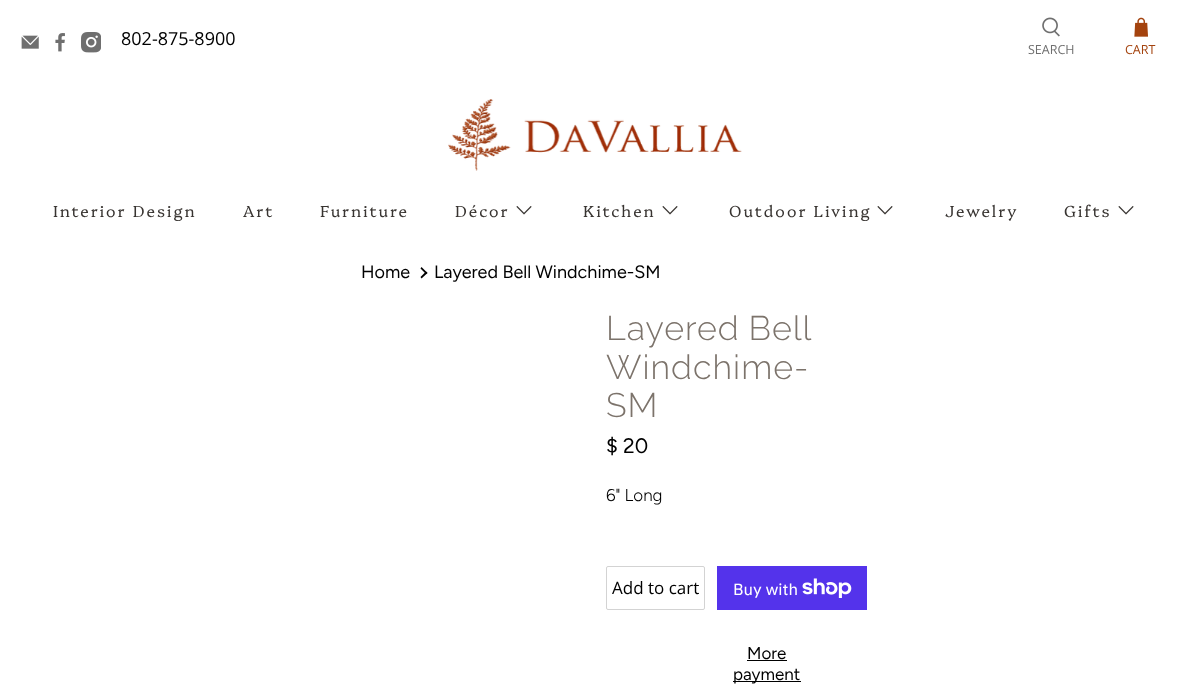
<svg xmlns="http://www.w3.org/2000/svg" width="1192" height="684">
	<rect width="100%" height="100%" fill="#FFFFFF" />
	<image x="21" y="35" width="18" height="14" href="assets/img1.png" />
	<image x="55" y="33" width="10" height="19" href="assets/img2.png" />
	<image x="81" y="32" width="20" height="21" href="assets/img3.png" />
	<text x="121" y="45" font-family="Open Sans" font-size="18" fill="#000000">802-875-8900</text>
	<image x="1042" y="17" width="18" height="20" href="assets/img4.png" />
	<text x="1028" y="54" font-family="Open Sans" font-size="12.5" fill="#6F6F6F">SEARCH</text>
	<image x="1134" y="17" width="14" height="20" href="assets/img5.png" />
	<text x="1125" y="54" font-family="Open Sans" font-size="12.5" fill="#A4430E">CART</text>
	<image x="448" y="99" width="294" height="72" href="assets/img6.png" />
	<g font-family="Platypi" font-size="16" font-weight="300" letter-spacing="2" fill="#383431">
		<text x="53" y="217">Interior Design</text>
		<text x="243" y="217">Art</text>
		<text x="320" y="217">Furniture</text>
		<text x="455" y="217">Décor</text>
	</g>
	<image x="516" y="206" width="16" height="9" href="assets/img7.png" />
	<text x="583" y="217" font-family="Platypi" font-size="16" font-weight="300" letter-spacing="2" fill="#383431">Kitchen</text>
	<image x="662" y="206" width="16" height="9" href="assets/img7.png" />
	<text x="729" y="217" font-family="Platypi" font-size="16" font-weight="300" letter-spacing="2" fill="#383431">Outdoor Living</text>
	<image x="877" y="206" width="16" height="9" href="assets/img7.png" />
	<g font-family="Platypi" font-size="16" font-weight="300" letter-spacing="2" fill="#383431">
		<text x="945" y="217">Jewelry</text>
		<text x="1064" y="217">Gifts</text>
	</g>
	<image x="1118" y="206" width="16" height="9" href="assets/img7.png" />
	<text x="361" y="278" font-family="Figtree" font-size="18" fill="#000000">Home</text>
	<path d="M421.5 267L427.5 273L426 274L420.5 268.5Z" fill="#000000" />
	<path d="M426 271.5L427.5 273L421.5 278.5L420.5 277Z" fill="#000000" />
	<text x="434" y="278" font-family="Figtree" font-size="18" fill="#000000">Layered Bell Windchime-SM</text>
	<g font-family="Raleway" font-size="34" font-weight="300" letter-spacing="1" fill="#7C736B">
		<text x="606" y="340" word-spacing="-1">Layered Bell</text>
		<text x="606" y="379">Windchime-</text>
		<text x="606" y="417">SM</text>
	</g>
	<text x="606" y="453" font-family="Figtree" font-size="21" fill="#000000">$ 20</text>
	<text x="606" y="501" font-family="Figtree" font-size="17" font-weight="300" fill="#000000">6" Long</text>
	<rect x="606.5" y="566.5" width="98" height="43" rx="1.5" fill="none" stroke="#D3D3D3" />
	<text x="612" y="594" font-family="Open Sans" font-size="17" fill="#000000">Add to cart</text>
	<rect x="717" y="566" width="150" height="44" fill="#5433EB" />
	<text x="733" y="595" font-family="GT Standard" font-size="16" fill="#FFFFFF">Buy with</text>
	<image x="802" y="578" width="50" height="20" href="assets/img8.png" />
	<text x="747" y="659" font-family="Figtree" font-size="17" fill="#000000">More</text>
	<rect x="747" y="660" width="40" height="1" fill="#000000" />
	<rect x="733" y="681" width="68" height="1" fill="#000000" />
	<text x="733" y="680" font-family="Figtree" font-size="17" fill="#000000">payment</text>
</svg>
